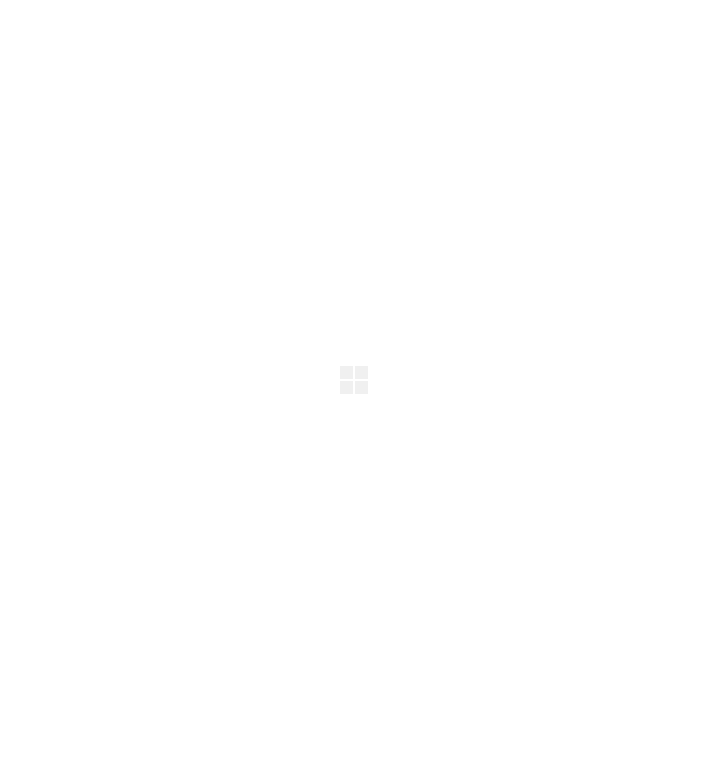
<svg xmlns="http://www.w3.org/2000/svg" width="727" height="780">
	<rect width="100%" height="100%" fill="#FFFFFF" />
	<rect x="340" y="366" width="13" height="13" fill="#F0F0F0" />
	<rect x="355" y="366" width="13" height="13" fill="#F0F0F0" />
	<rect x="340" y="381" width="13" height="13" fill="#F0F0F0" />
	<rect x="355" y="381" width="13" height="13" fill="#F0F0F0" />
</svg>
